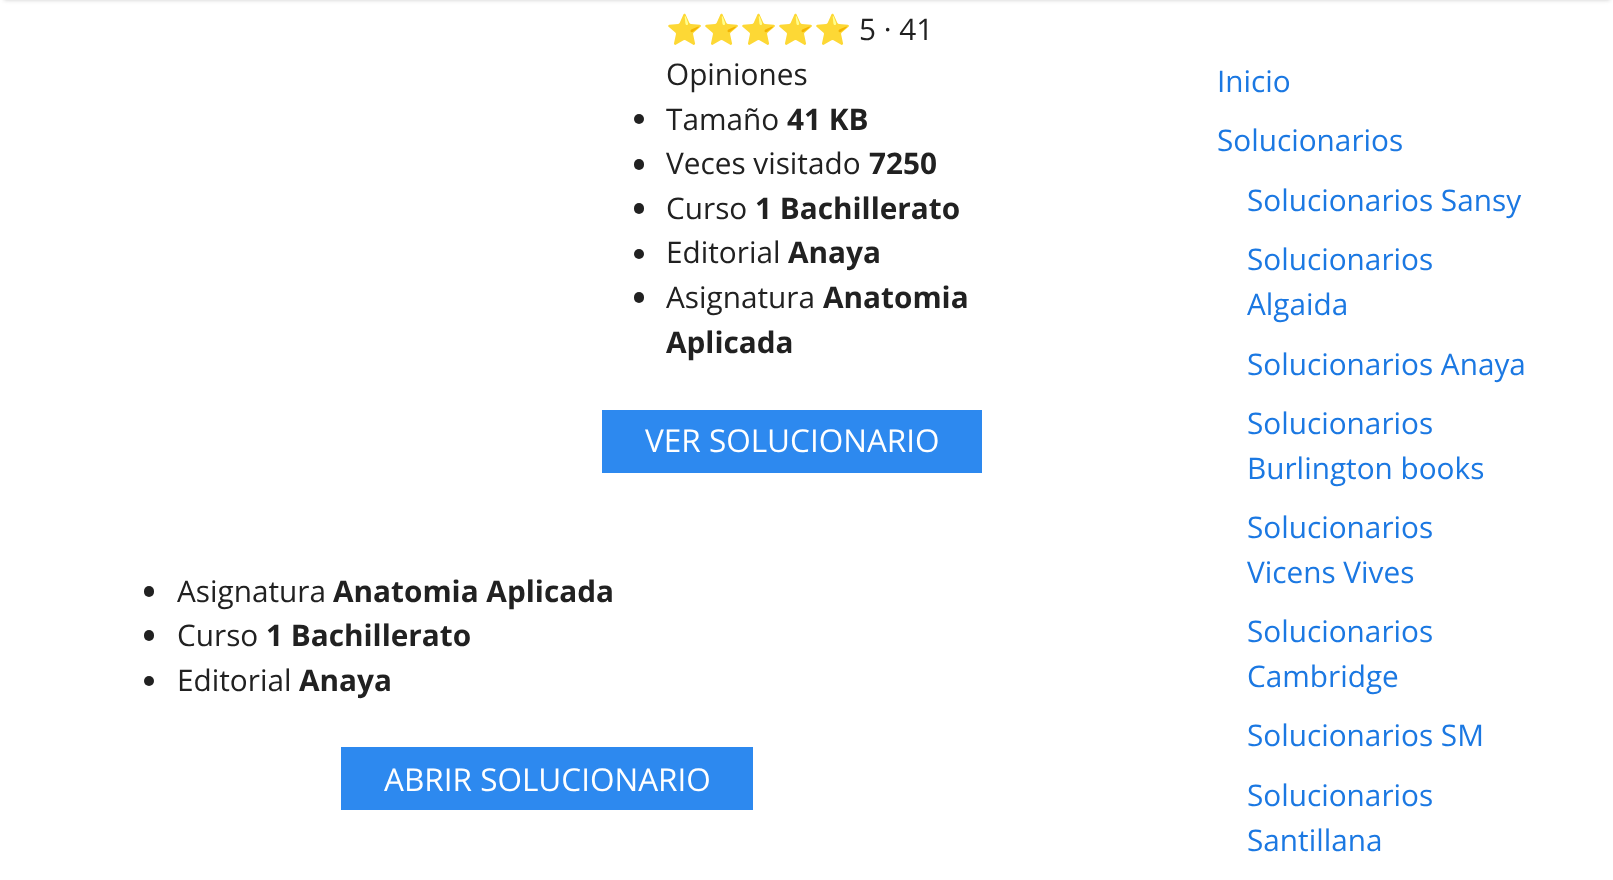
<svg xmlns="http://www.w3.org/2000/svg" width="1613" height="880">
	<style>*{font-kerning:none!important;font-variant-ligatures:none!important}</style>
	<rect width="100%" height="100%" fill="#FFFFFF" />
	<rect x="4" y="-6" width="1606" height="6" fill="#000000" fill-opacity="0.2" filter="blur(2px)" />
	<text x="666" y="40" font-family="Noto Color Emoji" font-size="29.75" fill="#212121">⭐⭐⭐⭐⭐</text>
	<g font-family="Open Sans" font-size="29.75" fill="#212121">
		<text x="859" y="40">5 · 41</text>
		<text x="666" y="85">Opiniones</text>
	</g>
	<circle cx="639" cy="119" r="5" fill="#212121" />
	<text x="666" y="130" font-family="Open Sans" font-size="29.75" fill="#212121">Tamaño</text>
	<text x="787" y="130" font-family="Open Sans" font-size="29.75" font-weight="700" fill="#212121">41 KB</text>
	<rect x="634" y="159" width="10" height="11" rx="5" fill="#212121" />
	<text x="666" y="174" font-family="Open Sans" font-size="29.75" fill="#212121">Veces visitado</text>
	<text x="869" y="174" font-family="Open Sans" font-size="29.75" font-weight="700" fill="#212121">7250</text>
	<rect x="634" y="203" width="10" height="11" rx="5" fill="#212121" />
	<text x="666" y="219" font-family="Open Sans" font-size="29.75" fill="#212121">Curso</text>
	<text x="755" y="219" font-family="Open Sans" font-size="29.75" font-weight="700" fill="#212121">1 Bachillerato</text>
	<circle cx="639" cy="254" r="5" fill="#212121" />
	<text x="666" y="263" font-family="Open Sans" font-size="29.75" fill="#212121">Editorial</text>
	<text x="788" y="263" font-family="Open Sans" font-size="29.75" font-weight="700" fill="#212121">Anaya</text>
	<rect x="634" y="292" width="10" height="11" rx="5" fill="#212121" />
	<text x="666" y="308" font-family="Open Sans" font-size="29.75" fill="#212121">Asignatura</text>
	<g font-family="Open Sans" font-size="29.75" font-weight="700" fill="#212121">
		<text x="823" y="308">Anatomia</text>
		<text x="666" y="353">Aplicada</text>
	</g>
	<rect x="602" y="410" width="380" height="63" fill="#2D89EF" />
	<text x="645" y="452" font-family="Open Sans" font-size="31.5" fill="#FFFFFF">VER SOLUCIONARIO</text>
	<rect x="144" y="586" width="10" height="11" rx="5" fill="#212121" />
	<text x="177" y="602" font-family="Open Sans" font-size="29.75" fill="#212121">Asignatura</text>
	<text x="333" y="602" font-family="Open Sans" font-size="29.75" font-weight="700" fill="#212121">Anatomia Aplicada</text>
	<rect x="144" y="630" width="10" height="11" rx="5" fill="#212121" />
	<text x="177" y="646" font-family="Open Sans" font-size="29.75" fill="#212121">Curso</text>
	<text x="266" y="646" font-family="Open Sans" font-size="29.75" font-weight="700" fill="#212121">1 Bachillerato</text>
	<circle cx="149" cy="681" r="5" fill="#212121" />
	<text x="177" y="691" font-family="Open Sans" font-size="29.75" fill="#212121">Editorial</text>
	<text x="299" y="691" font-family="Open Sans" font-size="29.75" font-weight="700" fill="#212121">Anaya</text>
	<rect x="341" y="747" width="412" height="63" fill="#2D89EF" />
	<text x="384" y="791" font-family="Open Sans" font-size="31.5" fill="#FFFFFF">ABRIR SOLUCIONARIO</text>
	<g font-family="Open Sans" font-size="29.75" fill="#1B78E2">
		<text x="1217" y="92">Inicio</text>
		<text x="1217" y="151">Solucionarios</text>
		<text x="1247" y="211">Solucionarios Sansy</text>
		<text x="1247" y="270">Solucionarios</text>
		<text x="1247" y="315">Algaida</text>
		<text x="1247" y="375">Solucionarios Anaya</text>
		<text x="1247" y="434">Solucionarios</text>
		<text x="1247" y="479">Burlington books</text>
		<text x="1247" y="538">Solucionarios</text>
		<text x="1247" y="583">Vicens Vives</text>
		<text x="1247" y="642">Solucionarios</text>
		<text x="1247" y="687">Cambridge</text>
		<text x="1247" y="746">Solucionarios SM</text>
		<text x="1247" y="806">Solucionarios</text>
		<text x="1247" y="851">Santillana</text>
	</g>
</svg>
